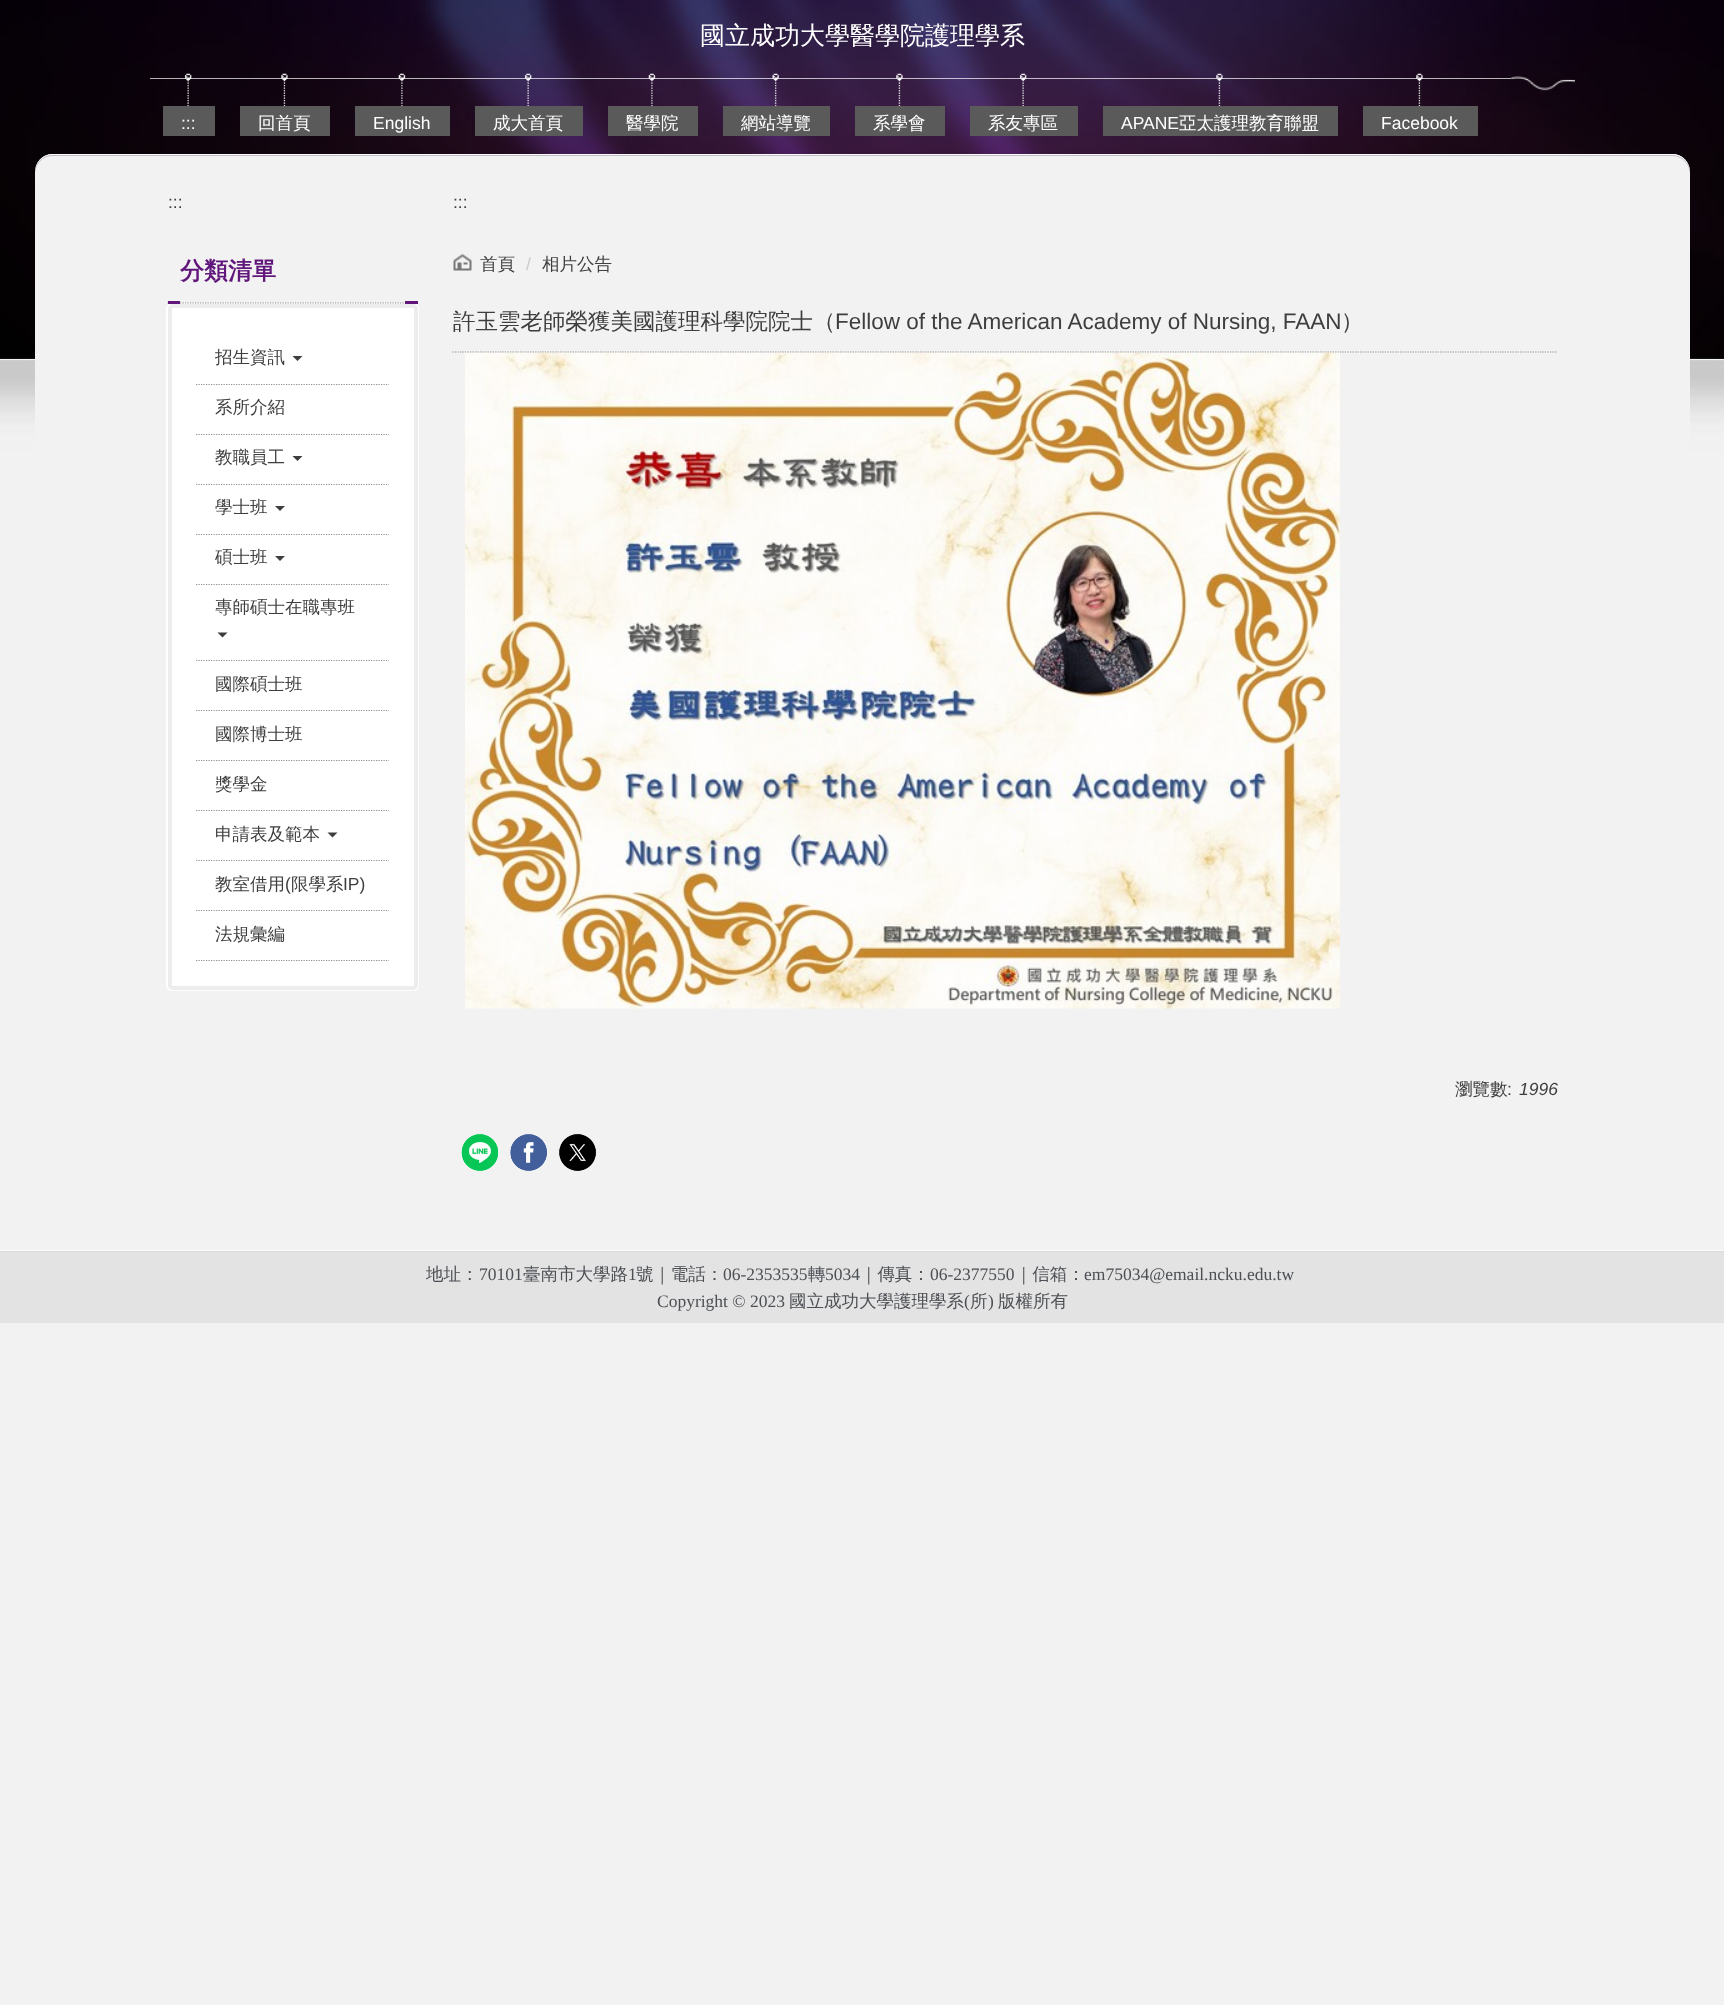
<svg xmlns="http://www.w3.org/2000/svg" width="1724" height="2005">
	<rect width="100%" height="100%" fill="#F2F2F2" />
	<image x="0" y="0" width="1724" height="604" href="assets/img1.png" />
	<text x="700" y="44" font-family="WenQuanYi Zen Hei" font-size="25" font-weight="500" fill="#FFFFFF">國立成功大學醫學院護理學系</text>
	<image x="1511" y="76" width="64" height="15" href="assets/img2.png" />
	<rect x="150" y="78" width="1361" height="1" fill="#FFFFFF" fill-opacity="0.7" />
	<image x="184" y="73" width="8" height="33" href="assets/img3.png" />
	<rect x="163" y="106" width="52" height="30" fill="#5A5A5A" />
	<text x="181" y="129" font-family="Liberation Sans" font-size="17.5" fill="#FFFFFF">:::</text>
	<image x="281" y="73" width="7" height="33" href="assets/img4.png" />
	<rect x="240" y="106" width="90" height="30" fill="#5A5A5A" />
	<text x="258" y="129" font-family="WenQuanYi Zen Hei" font-size="17.5" font-weight="500" fill="#FFFFFF">回首頁</text>
	<image x="398" y="73" width="8" height="33" href="assets/img5.png" />
	<rect x="355" y="106" width="95" height="30" fill="#5A5A5A" />
	<text x="373" y="129" font-family="Liberation Sans" font-size="17.5" fill="#FFFFFF">English</text>
	<image x="524" y="73" width="8" height="33" href="assets/img6.png" />
	<rect x="475" y="106" width="108" height="30" fill="#5A5A5A" />
	<text x="493" y="129" font-family="WenQuanYi Zen Hei" font-size="17.5" font-weight="500" fill="#FFFFFF">成大首頁</text>
	<image x="648" y="73" width="8" height="33" href="assets/img7.png" />
	<rect x="608" y="106" width="90" height="30" fill="#5A5A5A" />
	<text x="626" y="129" font-family="WenQuanYi Zen Hei" font-size="17.5" font-weight="500" fill="#FFFFFF">醫學院</text>
	<image x="772" y="73" width="7" height="33" href="assets/img8.png" />
	<rect x="723" y="106" width="107" height="30" fill="#5A5A5A" />
	<text x="741" y="129" font-family="WenQuanYi Zen Hei" font-size="17.5" font-weight="500" fill="#FFFFFF">網站導覽</text>
	<image x="896" y="73" width="7" height="33" href="assets/img9.png" />
	<rect x="855" y="106" width="90" height="30" fill="#5A5A5A" />
	<text x="873" y="129" font-family="WenQuanYi Zen Hei" font-size="17.5" font-weight="500" fill="#FFFFFF">系學會</text>
	<image x="1019" y="73" width="8" height="33" href="assets/img10.png" />
	<rect x="970" y="106" width="108" height="30" fill="#5A5A5A" />
	<text x="988" y="129" font-family="WenQuanYi Zen Hei" font-size="17.5" font-weight="500" fill="#FFFFFF">系友專區</text>
	<image x="1216" y="73" width="7" height="33" href="assets/img11.png" />
	<rect x="1103" y="106" width="235" height="30" fill="#5A5A5A" />
	<text x="1121" y="129" font-family="Liberation Sans" font-size="17.5" fill="#FFFFFF">APANE</text>
	<text x="1179" y="129" font-family="WenQuanYi Zen Hei" font-size="17.5" font-weight="500" fill="#FFFFFF">亞太護理教育聯盟</text>
	<image x="1416" y="73" width="7" height="33" href="assets/img12.png" />
	<rect x="1363" y="106" width="115" height="30" fill="#5A5A5A" />
	<text x="1381" y="129" font-family="Liberation Sans" font-size="17.5" fill="#FFFFFF">Facebook</text>
	<rect x="35" y="154" width="1655" height="1080" rx="18" fill="#F2F2F2" />
	<path d="M52 156H1672C1682 156 1690 164 1690 174C1690 163 1684 154 1672 154H53C41 154 35 163 35 174C35 164 43 156 52 156Z" fill="#C2BBC7" />
	<path d="M52 155H1672C1682 155 1690 163 1690 172C1690 162 1682 154 1672 154H53C43 154 35 162 35 172C35 163 43 155 52 155Z" fill="#FFFFFF" />
	<text x="168" y="208" font-family="Liberation Sans" font-size="17.5" fill="#3E3E3E">:::</text>
	<rect x="166" y="303" width="253" height="688" rx="6" fill="#FFFFFF" filter="blur(0.5px)" />
	<path d="M167.5 303H417.5" fill="none" stroke="#919191" stroke-width="1.2" stroke-dasharray="1.25 1.25" />
	<text x="180" y="279" font-family="WenQuanYi Zen Hei" font-size="24" font-weight="700" fill="#60167B">分類清單</text>
	<rect x="168" y="301" width="12" height="3" fill="#60167B" />
	<rect x="405" y="301" width="13" height="3" fill="#60167B" />
	<rect x="170" y="306" width="246" height="682" rx="3" fill="none" stroke="#EDEDED" stroke-width="4" />
	<path d="M196 384.5H389" fill="none" stroke="#919191" stroke-width="1.2" stroke-dasharray="1.25 1.25" />
	<text x="215" y="363" font-family="WenQuanYi Zen Hei" font-size="17.5" font-weight="500" fill="#3E3E3E">招生資訊</text>
	<path d="M292.5 356H302.5L297.5 361Z" fill="#3E3E3E" />
	<path d="M196 434.5H389" fill="none" stroke="#919191" stroke-width="1.2" stroke-dasharray="1.25 1.25" />
	<text x="215" y="413" font-family="WenQuanYi Zen Hei" font-size="17.5" font-weight="500" fill="#3E3E3E">系所介紹</text>
	<path d="M196 484.5H389" fill="none" stroke="#919191" stroke-width="1.2" stroke-dasharray="1.25 1.25" />
	<text x="215" y="463" font-family="WenQuanYi Zen Hei" font-size="17.5" font-weight="500" fill="#3E3E3E">教職員工</text>
	<path d="M292.5 456H302.5L297.5 461Z" fill="#3E3E3E" />
	<path d="M196 534.5H389" fill="none" stroke="#919191" stroke-width="1.2" stroke-dasharray="1.25 1.25" />
	<text x="215" y="513" font-family="WenQuanYi Zen Hei" font-size="17.5" font-weight="500" fill="#3E3E3E">學士班</text>
	<path d="M275 506H285L280 511Z" fill="#3E3E3E" />
	<path d="M196 584.5H389" fill="none" stroke="#919191" stroke-width="1.2" stroke-dasharray="1.25 1.25" />
	<text x="215" y="563" font-family="WenQuanYi Zen Hei" font-size="17.5" font-weight="500" fill="#3E3E3E">碩士班</text>
	<path d="M275 556H285L280 561Z" fill="#3E3E3E" />
	<path d="M196 660.5H389" fill="none" stroke="#919191" stroke-width="1.2" stroke-dasharray="1.25 1.25" />
	<text x="215" y="613" font-family="WenQuanYi Zen Hei" font-size="17.5" font-weight="500" fill="#3E3E3E">專師碩士在職專班</text>
	<path d="M217.5 632.5H227.5L222.5 637.5Z" fill="#3E3E3E" />
	<path d="M196 710.5H389" fill="none" stroke="#919191" stroke-width="1.2" stroke-dasharray="1.25 1.25" />
	<text x="215" y="690" font-family="WenQuanYi Zen Hei" font-size="17.5" font-weight="500" fill="#3E3E3E">國際碩士班</text>
	<path d="M196 760.5H389" fill="none" stroke="#919191" stroke-width="1.2" stroke-dasharray="1.25 1.25" />
	<text x="215" y="740" font-family="WenQuanYi Zen Hei" font-size="17.5" font-weight="500" fill="#3E3E3E">國際博士班</text>
	<path d="M196 810.5H389" fill="none" stroke="#919191" stroke-width="1.2" stroke-dasharray="1.25 1.25" />
	<text x="215" y="790" font-family="WenQuanYi Zen Hei" font-size="17.5" font-weight="500" fill="#3E3E3E">獎學金</text>
	<path d="M196 860.5H389" fill="none" stroke="#919191" stroke-width="1.2" stroke-dasharray="1.25 1.25" />
	<text x="215" y="840" font-family="WenQuanYi Zen Hei" font-size="17.5" font-weight="500" fill="#3E3E3E">申請表及範本</text>
	<path d="M327.5 832.5H337.5L332.5 837.5Z" fill="#3E3E3E" />
	<path d="M196 910.5H389" fill="none" stroke="#919191" stroke-width="1.2" stroke-dasharray="1.25 1.25" />
	<text x="215" y="890" font-family="WenQuanYi Zen Hei" font-size="17.5" font-weight="500" fill="#3E3E3E">教室借用</text>
	<text x="285" y="890" font-family="Liberation Sans" font-size="17.5" fill="#3E3E3E">(</text>
	<text x="291" y="890" font-family="WenQuanYi Zen Hei" font-size="17.5" font-weight="500" fill="#3E3E3E">限學系</text>
	<text x="343" y="890" font-family="Liberation Sans" font-size="17.5" fill="#3E3E3E">IP)</text>
	<path d="M196 960.5H389" fill="none" stroke="#919191" stroke-width="1.2" stroke-dasharray="1.25 1.25" />
	<text x="215" y="940" font-family="WenQuanYi Zen Hei" font-size="17.5" font-weight="500" fill="#3E3E3E">法規彙編</text>
	<text x="453" y="208" font-family="Liberation Sans" font-size="17.5" fill="#3E3E3E">:::</text>
	<image x="453" y="254" width="19" height="17" href="assets/img13.png" />
	<text x="480" y="270" font-family="WenQuanYi Zen Hei" font-size="17.5" font-weight="500" fill="#3E3E3E">首頁</text>
	<text x="526" y="270" font-family="Liberation Sans" font-size="17.5" fill="#CCCCCC">/</text>
	<text x="542" y="270" font-family="WenQuanYi Zen Hei" font-size="17.5" font-weight="500" fill="#3E3E3E">相片公告</text>
	<path d="M452.5 352H1557.5" fill="none" stroke="#919191" stroke-width="1.2" stroke-dasharray="1.25 1.25" />
	<text x="453" y="329" font-family="WenQuanYi Zen Hei" font-size="22.5" font-weight="500" fill="#3E3E3E">許玉雲老師榮獲美國護理科學院院士（</text>
	<text x="835" y="329" font-family="Liberation Sans" font-size="22.5" fill="#3E3E3E">Fellow of the American Academy of Nursing, FAAN</text>
	<text x="1341" y="329" font-family="WenQuanYi Zen Hei" font-size="22.5" font-weight="500" fill="#3E3E3E">）</text>
	<image x="465" y="352" width="875" height="657" href="assets/img14.png" />
	<text x="1455" y="1095" font-family="WenQuanYi Zen Hei" font-size="17.5" font-weight="500" fill="#3E3E3E">瀏覽數</text>
	<text x="1507" y="1095" font-family="Liberation Sans" font-size="17.5" fill="#3E3E3E">:</text>
	<text x="1519" y="1095" font-family="Liberation Sans" font-size="17.5" font-style="italic" fill="#3E3E3E">1996</text>
	<rect x="461" y="1134" width="38" height="37" rx="18.5" fill="#FFFFFF" />
	<image x="461" y="1133" width="38" height="38" href="assets/img15.png" />
	<rect x="510" y="1134" width="38" height="37" rx="18.5" fill="#FFFFFF" />
	<image x="510" y="1133" width="38" height="38" href="assets/img16.png" />
	<circle cx="577.5" cy="1152.5" r="18.5" fill="#FFFFFF" />
	<image x="559" y="1133" width="38" height="38" href="assets/img17.png" />
	<rect x="0" y="1250" width="1724" height="1" fill="#FCFCFC" />
	<rect x="0" y="1252" width="1724" height="71" fill="#E3E3E3" />
	<rect x="0" y="1251" width="1724" height="1" fill="#DADADA" />
	<text x="426" y="1280" font-family="WenQuanYi Zen Hei" font-size="17.5" font-weight="500" fill="#4C4F54">地址：</text>
	<text x="479" y="1280" font-family="Liberation Serif" font-size="17.5" fill="#4C4F54">70101</text>
	<text x="523" y="1280" font-family="WenQuanYi Zen Hei" font-size="17.5" font-weight="500" fill="#4C4F54">臺南市大學路</text>
	<text x="628" y="1280" font-family="Liberation Serif" font-size="17.5" fill="#4C4F54">1</text>
	<text x="636" y="1280" font-family="WenQuanYi Zen Hei" font-size="17.5" font-weight="500" fill="#4C4F54">號｜電話：</text>
	<text x="723" y="1280" font-family="Liberation Serif" font-size="17.5" fill="#4C4F54">06-2353535</text>
	<text x="808" y="1280" font-family="WenQuanYi Zen Hei" font-size="17.5" font-weight="500" fill="#4C4F54">轉</text>
	<text x="825" y="1280" font-family="Liberation Serif" font-size="17.5" fill="#4C4F54">5034</text>
	<text x="860" y="1280" font-family="WenQuanYi Zen Hei" font-size="17.5" font-weight="500" fill="#4C4F54">｜傳真：</text>
	<text x="930" y="1280" font-family="Liberation Serif" font-size="17.5" fill="#4C4F54">06-2377550</text>
	<text x="1015" y="1280" font-family="WenQuanYi Zen Hei" font-size="17.5" font-weight="500" fill="#4C4F54">｜信箱：</text>
	<g font-family="Liberation Serif" font-size="17.5" fill="#4C4F54">
		<text x="1084" y="1280">em75034@email.ncku.edu.tw</text>
		<text x="657" y="1307">Copyright © 2023</text>
	</g>
	<text x="789" y="1307" font-family="WenQuanYi Zen Hei" font-size="17.5" font-weight="500" fill="#4C4F54">國立成功大學護理學系</text>
	<text x="964" y="1307" font-family="Liberation Serif" font-size="17.5" fill="#4C4F54">(</text>
	<text x="970" y="1307" font-family="WenQuanYi Zen Hei" font-size="17.5" font-weight="500" fill="#4C4F54">所</text>
	<text x="988" y="1307" font-family="Liberation Serif" font-size="17.5" fill="#4C4F54">)</text>
	<text x="998" y="1307" font-family="WenQuanYi Zen Hei" font-size="17.5" font-weight="500" fill="#4C4F54">版權所有</text>
</svg>
